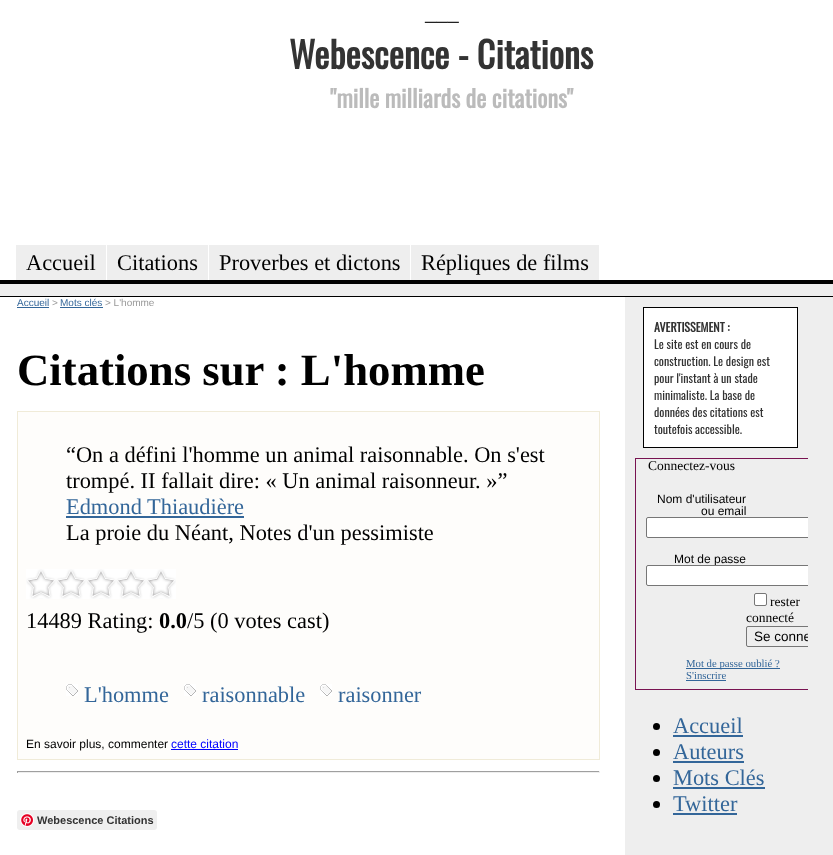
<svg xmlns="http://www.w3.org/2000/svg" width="833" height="855">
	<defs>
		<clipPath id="clip1"><rect x="633" y="297" width="175" height="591" /></clipPath>
		<clipPath id="clip2"><rect x="748" y="628" width="60" height="17" /></clipPath>
	</defs>
	<rect width="100%" height="100%" fill="#FFFFFF" />
	<rect x="0" y="296" width="833" height="1" fill="#000000" />
	<text x="425" y="20" font-family="Liberation Serif" font-size="22.4" fill="#000000">___</text>
	<text x="289" y="69" font-family="Oswald" font-size="36" font-weight="700" fill="#333333">Webescence - Citations</text>
	<text x="330" y="108" font-family="Oswald" font-size="24" font-weight="700" fill="#BBBBBB">"mille milliards de citations"</text>
	<rect x="16" y="245" width="90" height="35" fill="#EEEEEE" />
	<text x="26" y="270" font-family="Liberation Serif" font-size="22.4" fill="#000000">Accueil</text>
	<rect x="107" y="245" width="101" height="35" fill="#EEEEEE" />
	<text x="117" y="270" font-family="Liberation Serif" font-size="22.4" fill="#000000">Citations</text>
	<rect x="209" y="245" width="201" height="35" fill="#EEEEEE" />
	<text x="219" y="270" font-family="Liberation Serif" font-size="22.4" fill="#000000">Proverbes et dictons</text>
	<rect x="411" y="245" width="188" height="35" fill="#EEEEEE" />
	<text x="421" y="270" font-family="Liberation Serif" font-size="22.4" fill="#000000">Répliques de films</text>
	<rect x="0" y="284" width="833" height="12" fill="#EEEEEE" />
	<rect x="0" y="280" width="833" height="4" fill="#000000" />
	<rect x="625" y="297" width="208" height="558" fill="#EEEEEE" />
	<text x="17" y="306" font-family="Liberation Sans" font-size="10" fill="#336699">Accueil</text>
	<rect x="17" y="307" width="32" height="1" fill="#336699" />
	<text x="52" y="306" font-family="Liberation Sans" font-size="10" fill="#999999">&gt;</text>
	<text x="60" y="306" font-family="Liberation Sans" font-size="10" fill="#336699">Mots clés</text>
	<rect x="60" y="307" width="43" height="1" fill="#336699" />
	<text x="105" y="306" font-family="Liberation Sans" font-size="10" fill="#999999">&gt; L'homme</text>
	<text x="17" y="385" font-family="Liberation Serif" font-size="44.75" font-weight="700" fill="#000000">Citations sur : L'homme</text>
	<rect x="17.5" y="411.5" width="582" height="348" fill="#FEFDFB" stroke="#F0EBD8" />
	<g font-family="Liberation Serif" font-size="22.4" fill="#000000">
		<text x="66" y="462">“On a défini l'homme un animal raisonnable. On s'est</text>
		<text x="66" y="488">trompé. II fallait dire: « Un animal raisonneur. »”</text>
	</g>
	<text x="66" y="514" font-family="Liberation Serif" font-size="22.4" fill="#336699">Edmond Thiaudière</text>
	<rect x="66" y="516" width="178" height="2" fill="#336699" />
	<text x="66" y="540" font-family="Liberation Serif" font-size="22.4" fill="#000000">La proie du Néant, Notes d'un pessimiste</text>
	<image x="26" y="569" width="150" height="30" href="assets/img1.png" />
	<text x="26" y="628" font-family="Liberation Serif" font-size="22.4" fill="#000000">14489 Rating:</text>
	<text x="159" y="628" font-family="Liberation Serif" font-size="22.4" font-weight="700" fill="#000000">0.0</text>
	<text x="187" y="628" font-family="Liberation Serif" font-size="22.4" fill="#000000">/5 (0 votes cast)</text>
	<image x="66" y="684" width="12" height="12" href="assets/img2.png" />
	<text x="84" y="702" font-family="Liberation Serif" font-size="22.4" fill="#336699">L'homme</text>
	<image x="184" y="684" width="12" height="12" href="assets/img2.png" />
	<text x="202" y="702" font-family="Liberation Serif" font-size="22.4" fill="#336699">raisonnable</text>
	<image x="320" y="684" width="12" height="12" href="assets/img2.png" />
	<text x="338" y="702" font-family="Liberation Serif" font-size="22.4" fill="#336699">raisonner</text>
	<text x="26" y="748" font-family="Liberation Sans" font-size="12" fill="#000000">En savoir plus, commenter</text>
	<text x="171" y="748" font-family="Liberation Sans" font-size="12" fill="#0000FF">cette citation</text>
	<rect x="171" y="749" width="67" height="1" fill="#0000FF" />
	<rect x="17" y="771" width="583" height="1" fill="#9F9F9F" />
	<rect x="599" y="771" width="1" height="2" fill="#EEEEEE" />
	<rect x="17" y="772" width="583" height="1" fill="#EEEEEE" />
	<rect x="17" y="771" width="1" height="2" fill="#9F9F9F" />
	<rect x="17" y="810" width="140" height="20" rx="3" fill="#EFEFEF" />
	<image x="20" y="813" width="14" height="14" href="assets/img3.png" />
	<text x="37" y="824" font-family="Liberation Sans" font-size="11" font-weight="700" fill="#333333">Webescence Citations</text>
	<rect x="643.5" y="307.5" width="154" height="140" fill="#FFFFFF" stroke="#000000" />
	<text x="654" y="332" font-family="Oswald" font-size="12" font-weight="700" fill="#333333">AVERTISSEMENT :</text>
	<g font-family="Oswald" font-size="12" fill="#333333">
		<text x="654" y="349">Le site est en cours de</text>
		<text x="654" y="366">construction. Le design est</text>
		<text x="654" y="383">pour l'instant à un stade</text>
		<text x="654" y="400">minimaliste. La base de</text>
		<text x="654" y="417">données des citations est</text>
		<text x="654" y="434">toutefois accessible.</text>
	</g>
	<g clip-path="url(#clip1)">
		<rect x="635.5" y="458.5" width="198" height="231" fill="none" stroke="#781351" />
	</g>
	<text x="648" y="470" font-family="Liberation Serif" font-size="13.5" fill="#000000">Connectez-vous</text>
	<g font-family="Liberation Sans" font-size="12" fill="#000000">
		<text x="657" y="503">Nom d'utilisateur</text>
		<text x="701" y="515">ou email</text>
	</g>
	<path d="M648 517H808V538H648C647 538 646 537 646 536V519C646 518 647 517 648 517Z" fill="#FFFFFF" />
	<g clip-path="url(#clip1)">
		<rect x="646.5" y="517.5" width="184" height="20" rx="1.5" fill="none" stroke="#767676" />
	</g>
	<text x="674" y="563" font-family="Liberation Sans" font-size="12" fill="#000000">Mot de passe</text>
	<path d="M648 565H808V586H648C647 586 646 585 646 584V567C646 566 647 565 648 565Z" fill="#FFFFFF" />
	<g clip-path="url(#clip1)">
		<rect x="646.5" y="565.5" width="184" height="20" rx="1.5" fill="none" stroke="#767676" />
	</g>
	<rect x="754.5" y="593.5" width="12" height="12" rx="1.5" fill="#FFFFFF" stroke="#767676" />
	<g font-family="Liberation Serif" font-size="13.5" fill="#000000">
		<text x="770" y="606">rester</text>
		<text x="746" y="622">connecté</text>
	</g>
	<g clip-path="url(#clip1)">
		<rect x="746.5" y="626.5" width="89" height="20" rx="1.5" fill="none" stroke="#767676" />
	</g>
	<g clip-path="url(#clip2)">
		<text x="754" y="641" font-family="Liberation Sans" font-size="13.5" fill="#000000">Se conne</text>
	</g>
	<rect x="686" y="668" width="94" height="1" fill="#336699" />
	<g font-family="Liberation Serif" font-size="10.75" fill="#336699">
		<text x="686" y="667">Mot de passe oublié ?</text>
		<text x="686" y="679">S'inscrire</text>
	</g>
	<rect x="686" y="680" width="40" height="1" fill="#336699" />
	<circle cx="656.5" cy="726.5" r="3.5" fill="#000000" />
	<text x="673" y="733" font-family="Liberation Serif" font-size="22.4" fill="#336699">Accueil</text>
	<rect x="673" y="735" width="70" height="2" fill="#336699" />
	<circle cx="656.5" cy="752.5" r="3.5" fill="#000000" />
	<text x="673" y="759" font-family="Liberation Serif" font-size="22.4" fill="#336699">Auteurs</text>
	<rect x="673" y="761" width="71" height="2" fill="#336699" />
	<circle cx="656.5" cy="778.5" r="3.5" fill="#000000" />
	<text x="673" y="785" font-family="Liberation Serif" font-size="22.4" fill="#336699">Mots Clés</text>
	<rect x="673" y="787" width="92" height="2" fill="#336699" />
	<circle cx="656.5" cy="804.5" r="3.5" fill="#000000" />
	<text x="673" y="811" font-family="Liberation Serif" font-size="22.4" fill="#336699">Twitter</text>
	<rect x="673" y="813" width="64" height="2" fill="#336699" />
</svg>
